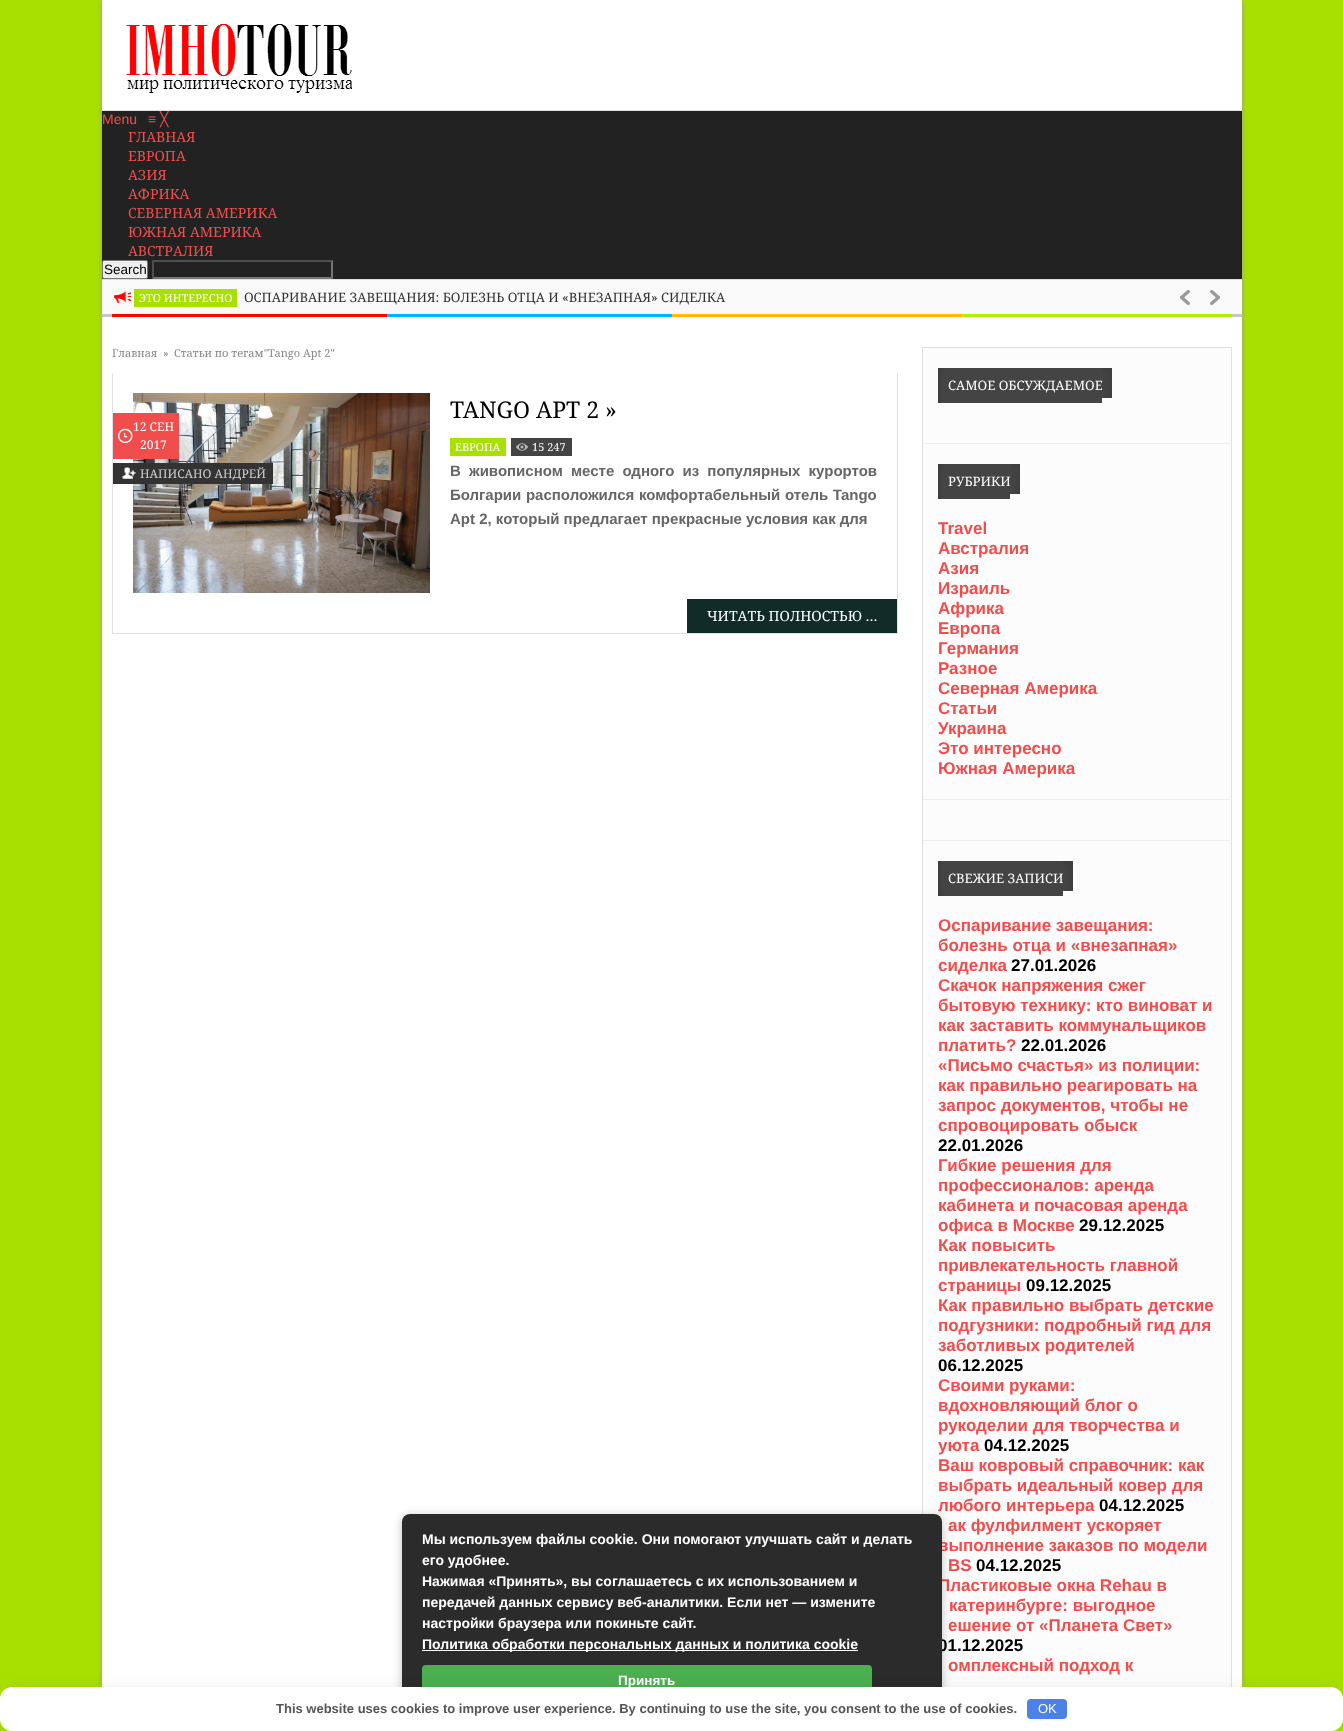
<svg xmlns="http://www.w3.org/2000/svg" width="1343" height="1731">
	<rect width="100%" height="100%" fill="#A8E000" />
	<rect x="102" y="1" width="1140" height="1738" fill="#999999" filter="blur(2.5px)" />
	<rect x="102" y="0" width="1140" height="1687" fill="#FFFFFF" />
	<image x="126" y="24" width="226" height="69" href="assets/img1.png" />
	<rect x="102" y="111" width="1140" height="168" fill="#222222" />
	<rect x="102" y="110" width="1140" height="1" fill="#DDDDDD" />
	<rect x="102" y="279" width="1140" height="1" fill="#DDDDDD" />
	<g font-family="Liberation Sans" font-size="14" fill="#F14D4D">
		<text x="102" y="124">Menu</text>
		<text x="148" y="124">≡</text>
	</g>
	<text x="160" y="124" font-family="DejaVu Sans" font-size="14" fill="#F14D4D">╳</text>
	<g font-family="Noto Serif" font-size="14" fill="#F14D4D">
		<text x="128" y="142">ГЛАВНАЯ</text>
		<text x="128" y="161">ЕВРОПА</text>
		<text x="128" y="180">АЗИЯ</text>
		<text x="128" y="199">АФРИКА</text>
		<text x="128" y="218">СЕВЕРНАЯ АМЕРИКА</text>
		<text x="128" y="237">ЮЖНАЯ АМЕРИКА</text>
		<text x="128" y="256">АВСТРАЛИЯ</text>
	</g>
	<rect x="102.5" y="260.5" width="45" height="18" rx="1.5" fill="#EFEFEF" stroke="#767676" />
	<text x="104" y="274" font-family="Liberation Sans" font-size="13.5" fill="#000000">Search</text>
	<path d="M152 260H333L331 262H154Z" fill="#4F4F4F" />
	<path d="M333 260V279L331 277V262Z" fill="#767676" />
	<path d="M333 279H152L154 277H331Z" fill="#767676" />
	<path d="M152 279V260L154 262V277Z" fill="#4F4F4F" />
	<rect x="102" y="280" width="1140" height="34" fill="#F9F9F9" />
	<rect x="102" y="314" width="1140" height="3" fill="#C7C7C7" />
	<image x="112" y="314" width="1120" height="3" href="assets/img2.png" />
	<image x="114" y="291" width="17" height="13" href="assets/img3.png" />
	<rect x="134" y="289" width="103" height="18" fill="#A8E000" />
	<text x="139" y="302" font-family="Noto Serif" font-size="11" fill="#FFFFFF">ЭТО ИНТЕРЕСНО</text>
	<text x="244" y="302" font-family="Noto Serif" font-size="13" fill="#333333">ОСПАРИВАНИЕ ЗАВЕЩАНИЯ: БОЛЕЗНЬ ОТЦА И «ВНЕЗАПНАЯ» СИДЕЛКА</text>
	<image x="1180" y="290" width="10" height="15" href="assets/img4.png" />
	<image x="1210" y="290" width="10" height="15" href="assets/img5.png" />
	<g font-family="Noto Serif" font-size="11" fill="#888888">
		<text x="112" y="357">Главная</text>
		<text x="163" y="357">»</text>
		<text x="174" y="357">Статьи по тегам"Tango Apt 2"</text>
	</g>
	<rect x="897" y="373" width="1" height="261" fill="#E1E1E1" />
	<rect x="112" y="633" width="786" height="1" fill="#E1E1E1" />
	<rect x="112" y="373" width="1" height="261" fill="#E1E1E1" />
	<image x="133" y="393" width="297" height="200" href="assets/img6.png" />
	<text x="450" y="418" font-family="Noto Serif" font-size="23" fill="#000000">TANGO APT 2 »</text>
	<rect x="113" y="413" width="66" height="46" fill="#F14D4D" />
	<image x="118" y="428" width="15" height="15" href="assets/img7.png" />
	<g font-family="Noto Serif" font-size="12" fill="#FFFFFF">
		<text x="133" y="431">12 СЕН</text>
		<text x="140" y="449">2017</text>
	</g>
	<rect x="450" y="438" width="56" height="18" fill="#A8E000" />
	<text x="455" y="451" font-family="Noto Serif" font-size="11" fill="#FFFFFF">ЕВРОПА</text>
	<rect x="511" y="438" width="61" height="18" fill="#444444" />
	<image x="516" y="443" width="12" height="8" href="assets/img8.png" />
	<text x="532" y="451" font-family="Noto Serif" font-size="11" fill="#FFFFFF">15 247</text>
	<rect x="113" y="463" width="160" height="21" fill="#333333" />
	<image x="122" y="467" width="14" height="12" href="assets/img9.png" />
	<text x="140" y="478" font-family="Noto Serif" font-size="12" fill="#CCCCCC">НАПИСАНО АНДРЕЙ</text>
	<g font-family="Liberation Sans" font-size="15" font-weight="700" fill="#666666">
		<text x="450" y="476" word-spacing="4">В живописном месте одного из популярных курортов</text>
		<text x="450" y="500" word-spacing="0.5">Болгарии расположился комфортабельный отель Tango</text>
		<text x="450" y="524">Apt 2, который предлагает прекрасные условия как для</text>
	</g>
	<rect x="687" y="599" width="210" height="34" fill="#112B29" />
	<text x="707" y="621" font-family="Noto Serif" font-size="14" fill="#FFFFFF">ЧИТАТЬ ПОЛНОСТЬЮ …</text>
	<rect x="923" y="348" width="308" height="1339" fill="#FCFCFC" />
	<rect x="922.5" y="347.5" width="309" height="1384" fill="none" stroke="#E1E1E1" />
	<rect x="923" y="443" width="307" height="1" fill="#EEEEEE" />
	<rect x="938" y="368" width="164" height="35" fill="#444444" />
	<image x="938" y="368" width="4" height="35" href="assets/img10.png" />
	<text x="948" y="390" font-family="Noto Serif" font-size="13" fill="#FFFFFF">САМОЕ ОБСУЖДАЕМОЕ</text>
	<rect x="1102" y="368" width="10" height="30" fill="#444444" />
	<image x="1102" y="368" width="10" height="30" href="assets/img11.png" />
	<rect x="923" y="799" width="307" height="1" fill="#EEEEEE" />
	<rect x="938" y="464" width="72" height="35" fill="#444444" />
	<image x="938" y="464" width="4" height="35" href="assets/img10.png" />
	<text x="948" y="486" font-family="Noto Serif" font-size="13" fill="#FFFFFF">РУБРИКИ</text>
	<rect x="1010" y="464" width="10" height="30" fill="#444444" />
	<image x="1010" y="464" width="10" height="30" href="assets/img11.png" />
	<g font-family="Liberation Sans" font-size="17" font-weight="700" fill="#F14D4D">
		<text x="938" y="534">Travel</text>
		<text x="938" y="554">Австралия</text>
		<text x="938" y="574">Азия</text>
		<text x="938" y="594">Израиль</text>
		<text x="938" y="614">Африка</text>
		<text x="938" y="634">Европа</text>
		<text x="938" y="654">Германия</text>
		<text x="938" y="674">Разное</text>
		<text x="938" y="694">Северная Америка</text>
		<text x="938" y="714">Статьи</text>
		<text x="938" y="734">Украина</text>
		<text x="938" y="754">Это интересно</text>
		<text x="938" y="774">Южная Америка</text>
	</g>
	<rect x="923" y="840" width="307" height="1" fill="#EEEEEE" />
	<rect x="938" y="861" width="125" height="35" fill="#444444" />
	<image x="938" y="861" width="4" height="35" href="assets/img10.png" />
	<text x="948" y="883" font-family="Noto Serif" font-size="13" fill="#FFFFFF">СВЕЖИЕ ЗАПИСИ</text>
	<rect x="1063" y="861" width="10" height="30" fill="#444444" />
	<image x="1063" y="861" width="10" height="30" href="assets/img11.png" />
	<g font-family="Liberation Sans" font-size="17" font-weight="700" fill="#F14D4D">
		<text x="938" y="931">Оспаривание завещания:</text>
		<text x="938" y="951">болезнь отца и «внезапная»</text>
		<text x="938" y="971">сиделка</text>
	</g>
	<text x="1011" y="971" font-family="Liberation Sans" font-size="17" font-weight="700" fill="#000000">27.01.2026</text>
	<g font-family="Liberation Sans" font-size="17" font-weight="700" fill="#F14D4D">
		<text x="938" y="991">Скачок напряжения сжег</text>
		<text x="938" y="1011">бытовую технику: кто виноват и</text>
		<text x="938" y="1031">как заставить коммунальщиков</text>
		<text x="938" y="1051">платить?</text>
	</g>
	<text x="1021" y="1051" font-family="Liberation Sans" font-size="17" font-weight="700" fill="#000000">22.01.2026</text>
	<g font-family="Liberation Sans" font-size="17" font-weight="700" fill="#F14D4D">
		<text x="938" y="1071">«Письмо счастья» из полиции:</text>
		<text x="938" y="1091">как правильно реагировать на</text>
		<text x="938" y="1111">запрос документов, чтобы не</text>
		<text x="938" y="1131">спровоцировать обыск</text>
	</g>
	<text x="938" y="1151" font-family="Liberation Sans" font-size="17" font-weight="700" fill="#000000">22.01.2026</text>
	<g font-family="Liberation Sans" font-size="17" font-weight="700" fill="#F14D4D">
		<text x="938" y="1171">Гибкие решения для</text>
		<text x="938" y="1191">профессионалов: аренда</text>
		<text x="938" y="1211">кабинета и почасовая аренда</text>
		<text x="938" y="1231">офиса в Москве</text>
	</g>
	<text x="1079" y="1231" font-family="Liberation Sans" font-size="17" font-weight="700" fill="#000000">29.12.2025</text>
	<g font-family="Liberation Sans" font-size="17" font-weight="700" fill="#F14D4D">
		<text x="938" y="1251">Как повысить</text>
		<text x="938" y="1271">привлекательность главной</text>
		<text x="938" y="1291">страницы</text>
	</g>
	<text x="1026" y="1291" font-family="Liberation Sans" font-size="17" font-weight="700" fill="#000000">09.12.2025</text>
	<g font-family="Liberation Sans" font-size="17" font-weight="700" fill="#F14D4D">
		<text x="938" y="1311">Как правильно выбрать детские</text>
		<text x="938" y="1331">подгузники: подробный гид для</text>
		<text x="938" y="1351">заботливых родителей</text>
	</g>
	<text x="938" y="1371" font-family="Liberation Sans" font-size="17" font-weight="700" fill="#000000">06.12.2025</text>
	<g font-family="Liberation Sans" font-size="17" font-weight="700" fill="#F14D4D">
		<text x="938" y="1391">Своими руками:</text>
		<text x="938" y="1411">вдохновляющий блог о</text>
		<text x="938" y="1431">рукоделии для творчества и</text>
		<text x="938" y="1451">уюта</text>
	</g>
	<text x="984" y="1451" font-family="Liberation Sans" font-size="17" font-weight="700" fill="#000000">04.12.2025</text>
	<g font-family="Liberation Sans" font-size="17" font-weight="700" fill="#F14D4D">
		<text x="938" y="1471">Ваш ковровый справочник: как</text>
		<text x="938" y="1491">выбрать идеальный ковер для</text>
		<text x="938" y="1511">любого интерьера</text>
	</g>
	<text x="1099" y="1511" font-family="Liberation Sans" font-size="17" font-weight="700" fill="#000000">04.12.2025</text>
	<g font-family="Liberation Sans" font-size="17" font-weight="700" fill="#F14D4D">
		<text x="948" y="1531">ак фулфилмент ускоряет</text>
		<text x="938" y="1551">выполнение заказов по модели</text>
		<text x="948" y="1571">BS</text>
	</g>
	<text x="976" y="1571" font-family="Liberation Sans" font-size="17" font-weight="700" fill="#000000">04.12.2025</text>
	<g font-family="Liberation Sans" font-size="17" font-weight="700" fill="#F14D4D">
		<text x="938" y="1591">Пластиковые окна Rehau в</text>
		<text x="949" y="1611">катеринбурге: выгодное</text>
		<text x="948" y="1631">ешение от «Планета Свет»</text>
	</g>
	<text x="938" y="1651" font-family="Liberation Sans" font-size="17" font-weight="700" fill="#000000">01.12.2025</text>
	<text x="948" y="1671" font-family="Liberation Sans" font-size="17" font-weight="700" fill="#F14D4D">омплексный подход к</text>
	<rect x="402" y="1516" width="540" height="197" rx="8" fill="#000000" fill-opacity="0.25" filter="blur(5px)" />
	<rect x="402" y="1514" width="540" height="197" rx="8" fill="#2B2B2B" />
	<g font-family="Liberation Sans" font-size="14" font-weight="700" fill="#FFFFFF">
		<text x="422" y="1544">Мы используем файлы cookie. Они помогают улучшать сайт и делать</text>
		<text x="422" y="1565">его удобнее.</text>
		<text x="422" y="1586">Нажимая «Принять», вы соглашаетесь с их использованием и</text>
		<text x="422" y="1607">передачей данных сервису веб-аналитики. Если нет — измените</text>
		<text x="422" y="1628">настройки браузера или покиньте сайт.</text>
	</g>
	<rect x="422" y="1650" width="436" height="1" fill="#FEFEFE" />
	<text x="422" y="1649" font-family="Liberation Sans" font-size="14" font-weight="700" fill="#FFFFFF">Политика обработки персональных данных и политика cookie</text>
	<rect x="422" y="1665" width="450" height="31" rx="4" fill="#4CAF50" />
	<text x="618" y="1685" font-family="Liberation Sans" font-size="13.5" font-weight="700" fill="#FFFFFF">Принять</text>
	<rect x="5" y="1695" width="1333" height="34" rx="7" fill="#292C38" fill-opacity="0.2" filter="blur(10px)" />
	<rect x="0" y="1687" width="1343" height="44" rx="12" fill="#FFFFFF" />
	<text x="276" y="1713" font-family="Liberation Sans" font-size="13" font-weight="700" fill="#555555">This website uses cookies to improve user experience. By continuing to use the site, you consent to the use of cookies.</text>
	<rect x="1027" y="1699" width="40" height="20" rx="4" fill="#4B81E8" />
	<text x="1038" y="1713" font-family="Liberation Sans" font-size="13" fill="#FFFFFF">OK</text>
</svg>
